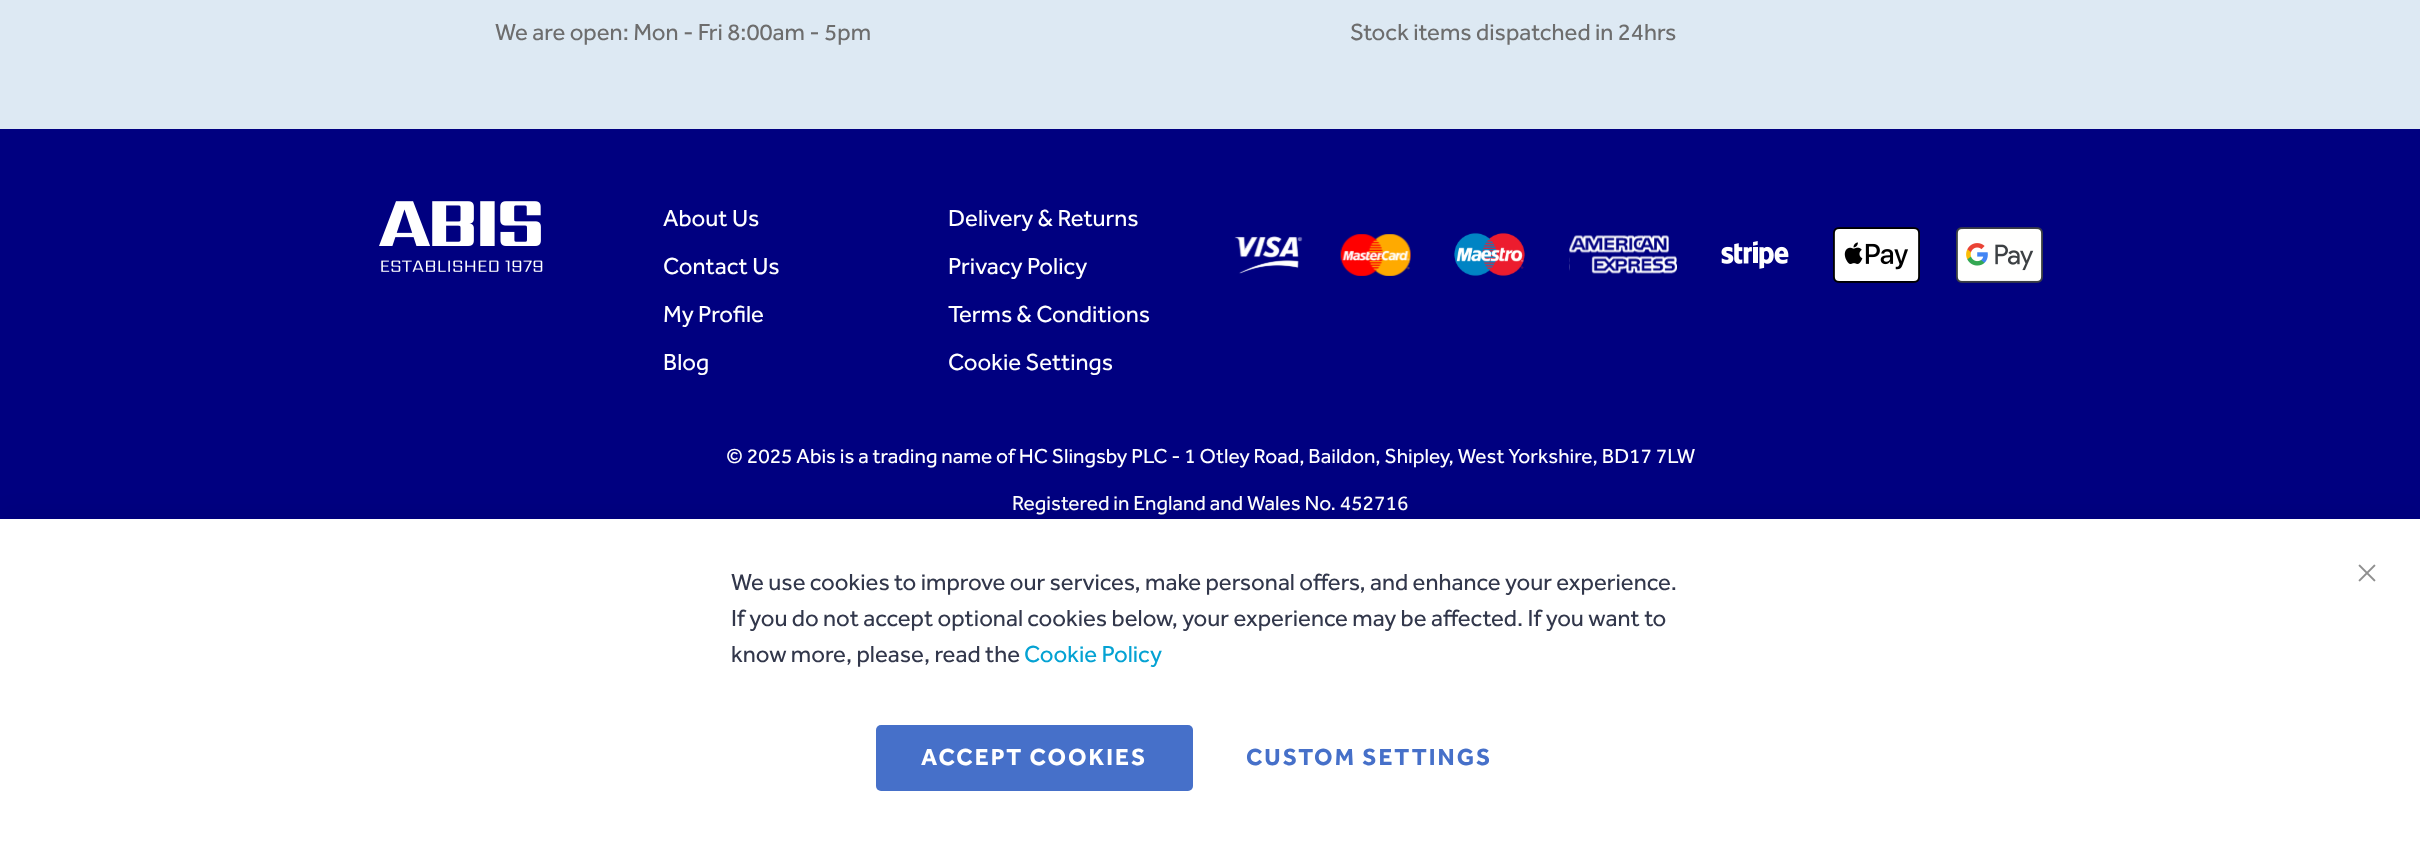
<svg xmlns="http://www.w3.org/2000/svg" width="2420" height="842">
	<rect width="100%" height="100%" fill="#DDE9F3" />
	<g font-family="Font" font-size="24" fill="#6D6D6D">
		<text x="495" y="40">We are open: Mon - Fri 8:00am - 5pm</text>
		<text x="1350" y="40">Stock items dispatched in 24hrs</text>
	</g>
	<rect x="0" y="129" width="2420" height="390" fill="#000080" />
	<image x="379" y="201" width="164" height="71" href="assets/img1.png" />
	<g font-family="Font" font-size="24" fill="#FFFFFF">
		<text x="663" y="226">About Us</text>
		<text x="663" y="274">Contact Us</text>
		<text x="663" y="322">My Profile</text>
		<text x="663" y="370">Blog</text>
		<text x="948" y="226">Delivery &amp; Returns</text>
		<text x="948" y="274">Privacy Policy</text>
		<text x="948" y="322">Terms &amp; Conditions</text>
		<text x="948" y="370">Cookie Settings</text>
	</g>
	<image x="1234" y="236" width="69" height="38" href="assets/img2.png" />
	<image x="1340" y="234" width="71" height="42" href="assets/img3.png" />
	<image x="1454" y="232" width="71" height="44" href="assets/img4.png" />
	<image x="1569" y="235" width="108" height="39" href="assets/img5.png" />
	<image x="1721" y="241" width="68" height="28" href="assets/img6.png" />
	<image x="1833" y="227" width="87" height="56" href="assets/img7.png" />
	<image x="1956" y="227" width="87" height="56" href="assets/img8.png" />
	<g font-family="Font" font-size="21" fill="#FFFFFF">
		<text x="726" y="463">© 2025 Abis is a trading name of HC Slingsby PLC - 1 Otley Road, Baildon, Shipley, West Yorkshire, BD17 7LW</text>
		<text x="1012" y="510">Registered in England and Wales No. 452716</text>
	</g>
	<rect x="0" y="516" width="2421" height="324" fill="#000000" fill-opacity="0.06" filter="blur(13.5px)" />
	<rect x="0" y="519" width="2420" height="323" fill="#FFFFFF" />
	<g font-family="Font" font-size="24" fill="#32374B">
		<text x="731" y="590">We use cookies to improve our services, make personal offers, and enhance your experience.</text>
		<text x="731" y="626">If you do not accept optional cookies below, your experience may be affected. If you want to</text>
		<text x="731" y="662">know more, please, read the</text>
	</g>
	<text x="1024" y="662" font-family="Font" font-size="24" fill="#04A2D3">Cookie Policy</text>
	<rect x="876" y="725" width="317" height="66" rx="5" fill="#4670C9" />
	<text x="921" y="765" font-family="Font" font-size="24" font-weight="700" letter-spacing="2" fill="#FFFFFF">ACCEPT COOKIES</text>
	<text x="1246" y="765" font-family="Font" font-size="24" font-weight="700" letter-spacing="2" fill="#4670C9">CUSTOM SETTINGS</text>
	<image x="2358" y="564" width="18" height="18" href="assets/img9.png" />
</svg>
